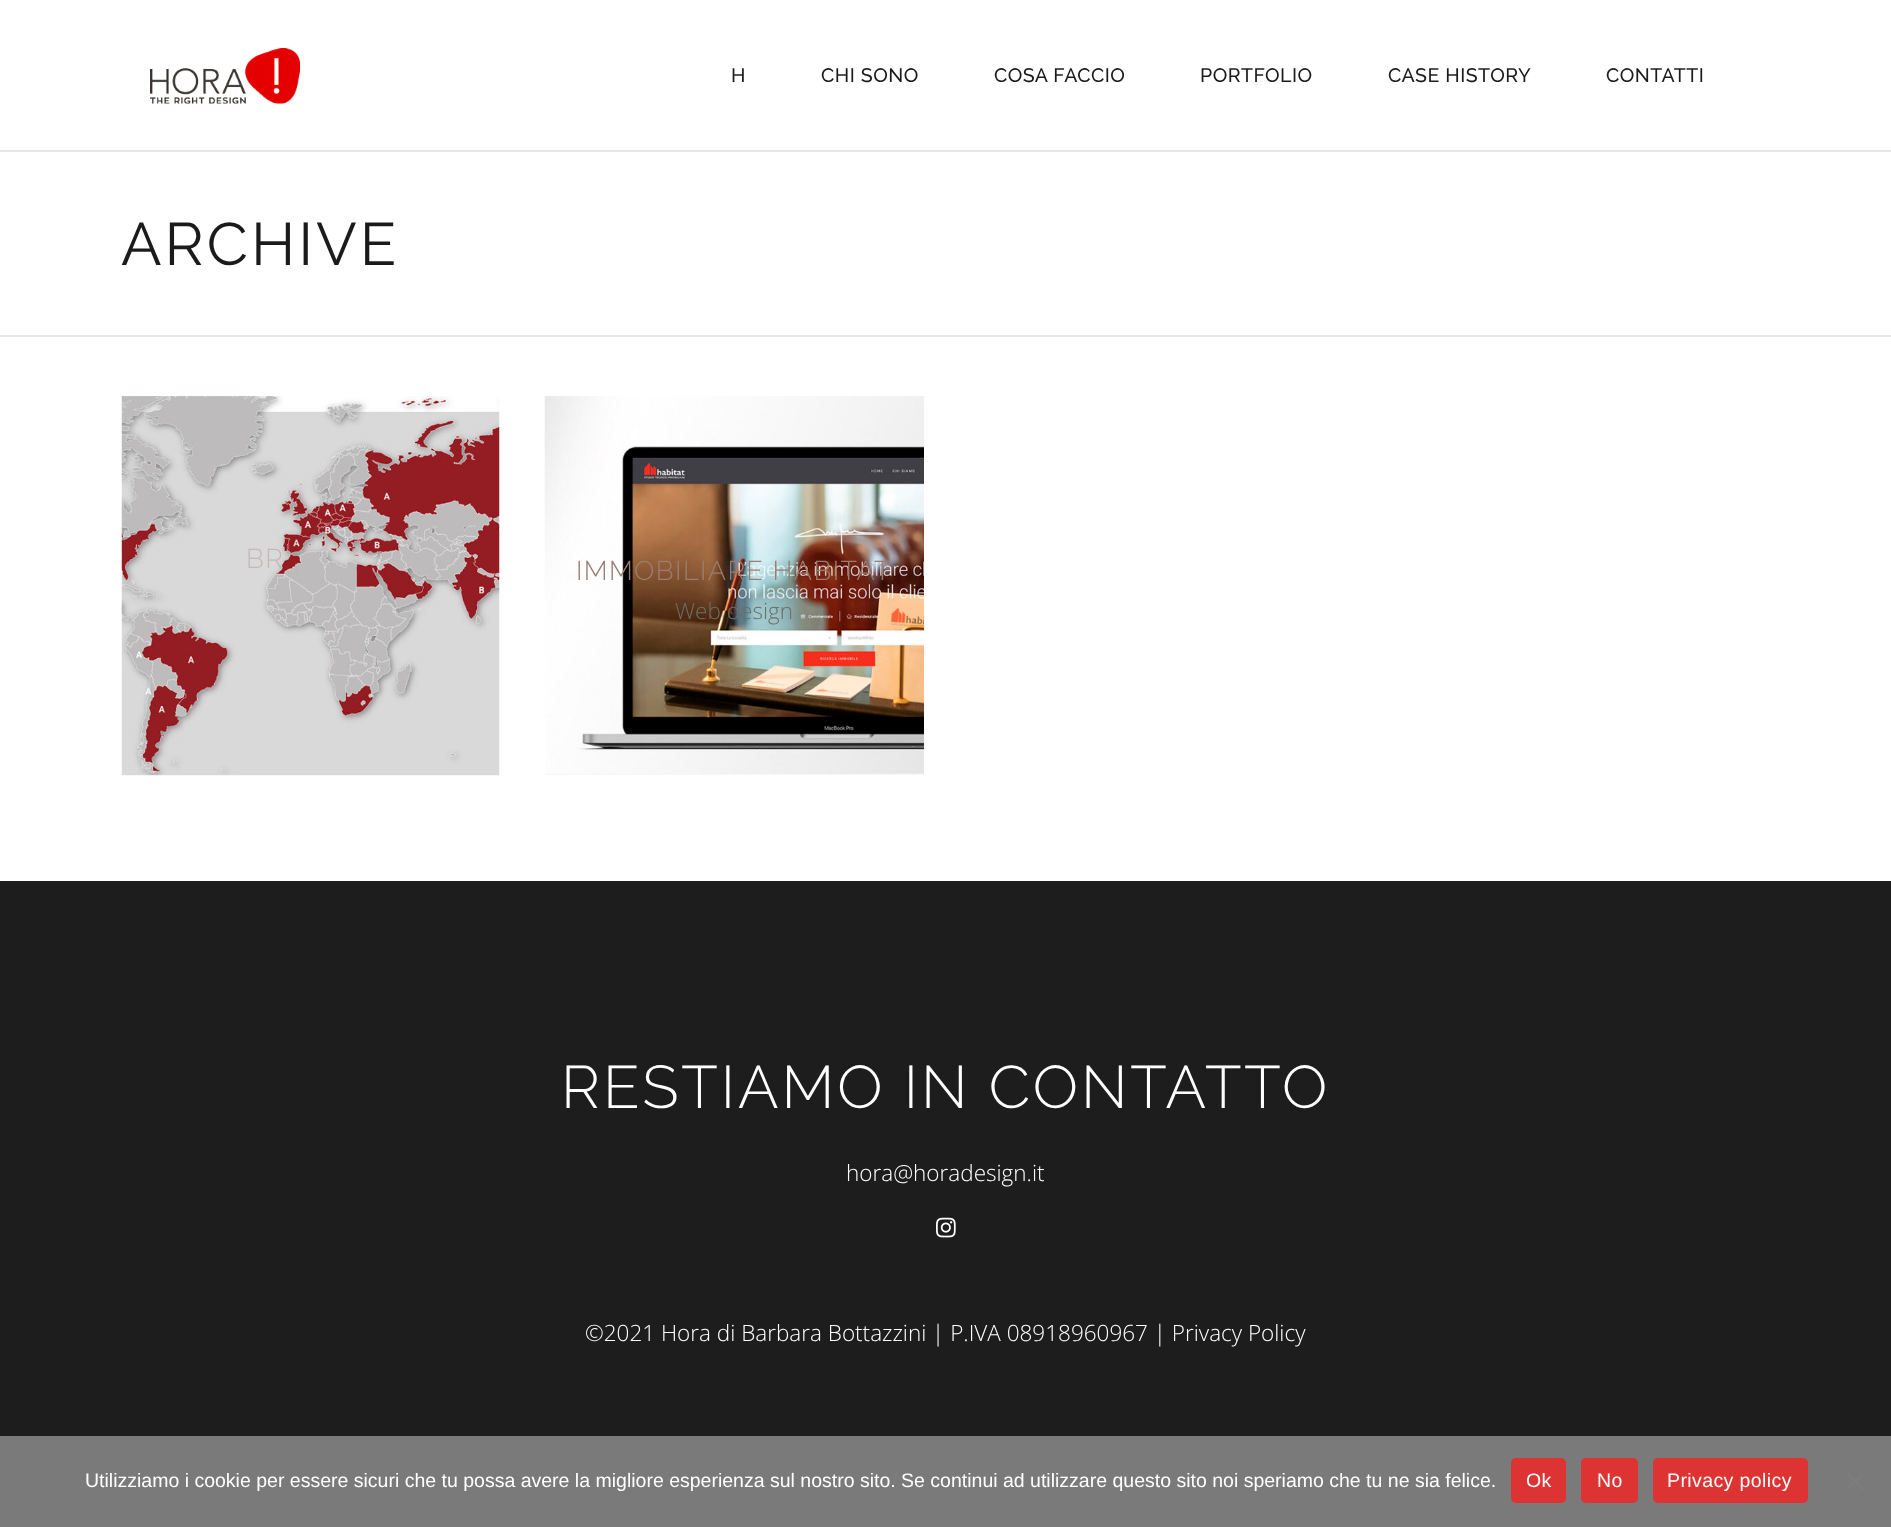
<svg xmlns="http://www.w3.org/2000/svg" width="1891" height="1527">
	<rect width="100%" height="100%" fill="#FFFFFF" />
	<image x="150" y="48" width="150" height="56" href="assets/img1.png" />
	<g font-family="Raleway" font-size="19.5" font-weight="500" letter-spacing="0.5" fill="#1B1B1B">
		<text x="731" y="82">H</text>
		<text x="821" y="82">CHI SONO</text>
		<text x="994" y="82">COSA FACCIO</text>
		<text x="1200" y="82">PORTFOLIO</text>
		<text x="1388" y="82">CASE HISTORY</text>
		<text x="1606" y="82">CONTATTI</text>
	</g>
	<rect x="0" y="150" width="1891" height="2" fill="#E5E5E5" />
	<rect x="0" y="335" width="1891" height="2" fill="#E5E5E5" />
	<text x="121" y="265" font-family="Raleway" font-size="60" letter-spacing="3" fill="#1B1B1B">ARCHIVE</text>
	<image x="121" y="396" width="379" height="380" href="assets/img2.png" />
	<text x="246" y="568" font-family="Raleway" font-size="27" font-weight="300" letter-spacing="1.4" fill="#C6B8B9">BR</text>
	<image x="544" y="396" width="380" height="379" href="assets/img3.png" />
	<text x="576" y="580" font-family="Raleway" font-size="27" font-weight="300" letter-spacing="1.4" fill="#997E71">IMMOBILIARE HABITAT</text>
	<text x="675" y="619" font-family="Open Sans" font-size="22.5" font-weight="300" fill="#6D6F67">Web design</text>
	<rect x="0" y="881" width="1891" height="555" fill="#1D1D1D" />
	<text x="561" y="1108" font-family="Raleway" font-size="60" font-weight="300" letter-spacing="3" fill="#FFFFFF">RESTIAMO IN CONTATTO</text>
	<text x="846" y="1181" font-family="Open Sans" font-size="22.5" font-weight="300" fill="#FFFFFF">hora@horadesign.it</text>
	<image x="936" y="1217" width="20" height="21" href="assets/img4.png" />
	<text x="585" y="1341" font-family="Open Sans" font-size="22.5" font-weight="300" fill="#FFFFFF">©2021 Hora di Barbara Bottazzini | P.IVA 08918960967 | Privacy Policy</text>
	<rect x="0" y="1436" width="1891" height="91" fill="#7A7A7A" />
	<text x="85" y="1487" font-family="Liberation Sans" font-size="19.5" fill="#FFFFFF">Utilizziamo i cookie per essere sicuri che tu possa avere la migliore esperienza sul nostro sito. Se continui ad utilizzare questo sito noi speriamo che tu ne sia felice.</text>
	<rect x="1511" y="1458" width="55" height="45" rx="5" fill="#DD3333" />
	<text x="1526" y="1487" font-family="Liberation Sans" font-size="19.5" letter-spacing="0.4" fill="#FFFFFF">Ok</text>
	<rect x="1581" y="1458" width="57" height="45" rx="5" fill="#DD3333" />
	<text x="1597" y="1487" font-family="Liberation Sans" font-size="19.5" letter-spacing="0.4" fill="#FFFFFF">No</text>
	<rect x="1653" y="1458" width="155" height="45" rx="5" fill="#DD3333" />
	<text x="1667" y="1487" font-family="Liberation Sans" font-size="19.5" letter-spacing="0.4" fill="#FFFFFF">Privacy policy</text>
	<path d="M1862.5 1472.5L1864.5 1474.5L1848.5 1490.5L1846.5 1488.5Z" fill="#7D7D7D" />
	<path d="M1846.5 1474.5L1848.5 1472.5L1864.5 1488.5L1862.5 1490.5Z" fill="#7D7D7D" />
</svg>
